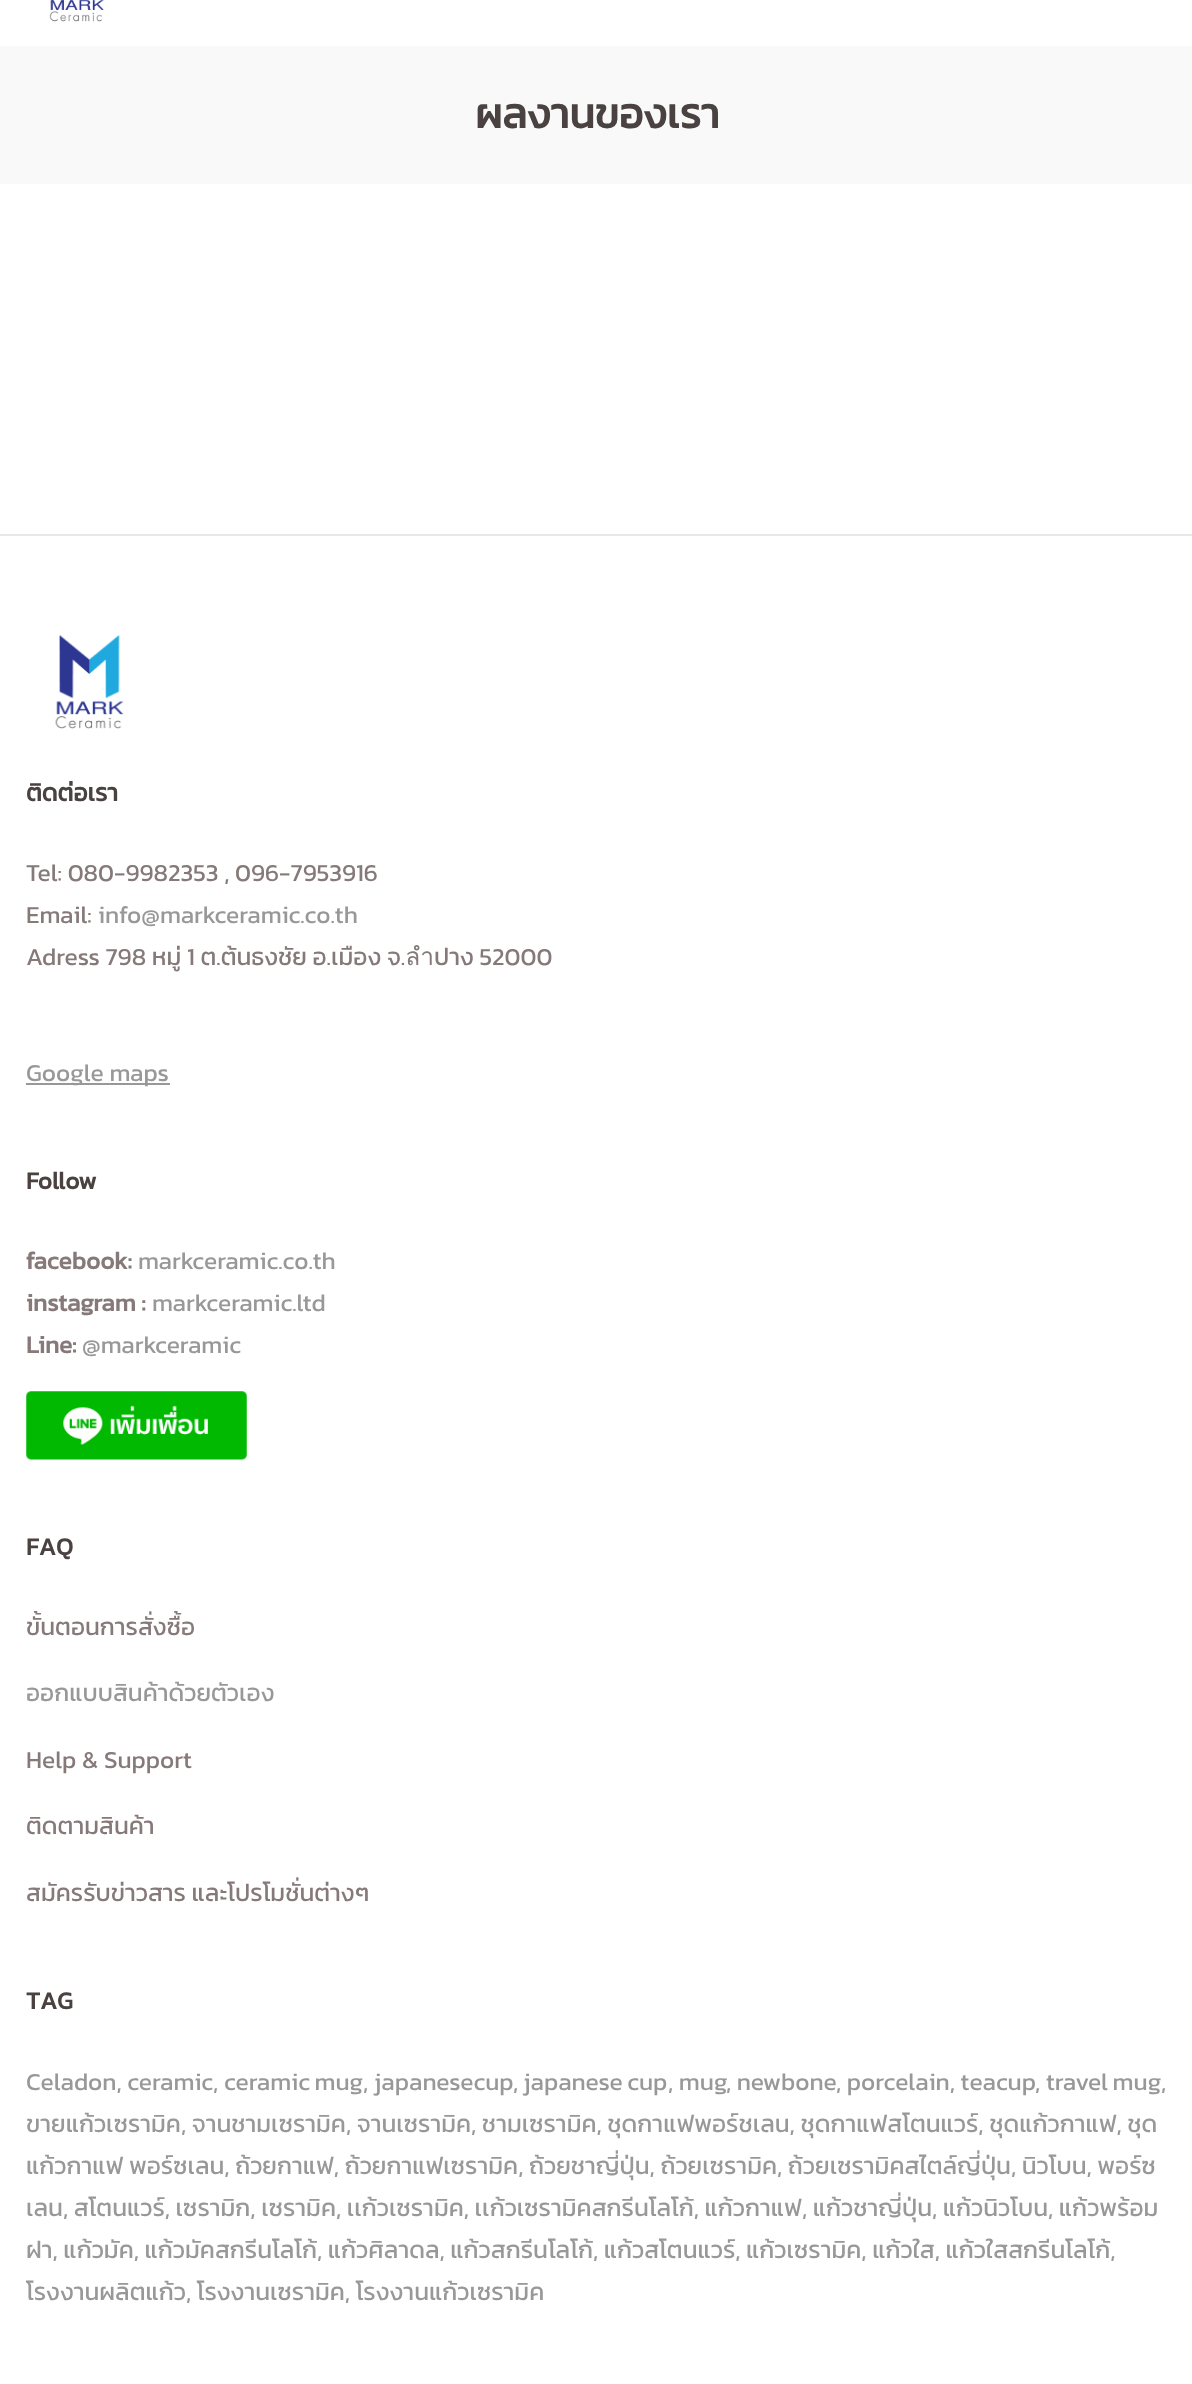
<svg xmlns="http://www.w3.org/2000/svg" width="1192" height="2384">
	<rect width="100%" height="100%" fill="#FFFFFF" />
	<image x="49" y="0" width="55" height="22" href="assets/img1.png" />
	<rect x="0" y="46" width="1192" height="138" fill="#F9F9F9" />
	<text x="475" y="128" font-family="Kanit" font-size="42" font-weight="700" fill="#4A4141">ผลงานของเรา</text>
	<rect x="0" y="534" width="1192" height="2" fill="#E7E7E7" />
	<image x="55" y="634" width="69" height="95" href="assets/img2.png" />
	<text x="26" y="801" font-family="Kanit" font-size="24.5" font-weight="700" fill="#4A4141">ติดต่อเรา</text>
	<g font-family="Kanit" font-size="24.5" fill="#867979">
		<text x="26" y="881">Tel: 080-9982353 , 096-7953916</text>
		<text x="26" y="923">Email:</text>
	</g>
	<text x="98" y="923" font-family="Kanit" font-size="24.5" fill="#989898">info@markceramic.co.th</text>
	<text x="26" y="965" font-family="Kanit" font-size="24.5" fill="#867979">Adress 798 หมู่ 1 ต.ต้นธงชัย อ.เมือง จ.ลำปาง 52000</text>
	<rect x="26" y="1083" width="144" height="2" fill="#989898" />
	<text x="26" y="1081" font-family="Kanit" font-size="24.5" fill="#989898">Google maps</text>
	<text x="26" y="1189" font-family="Kanit" font-size="24.5" font-weight="700" fill="#4A4141">Follow</text>
	<text x="26" y="1269" font-family="Kanit" font-size="24.5" font-weight="700" fill="#867979">facebook:</text>
	<text x="138" y="1269" font-family="Kanit" font-size="24.5" fill="#989898">markceramic.co.th</text>
	<text x="26" y="1311" font-family="Kanit" font-size="24.5" font-weight="700" fill="#867979">instagram :</text>
	<text x="152" y="1311" font-family="Kanit" font-size="24.5" fill="#989898">markceramic.ltd</text>
	<text x="26" y="1353" font-family="Kanit" font-size="24.5" font-weight="700" fill="#867979">Line:</text>
	<text x="82" y="1353" font-family="Kanit" font-size="24.5" fill="#989898">@markceramic</text>
	<image x="26" y="1391" width="221" height="69" href="assets/img3.png" />
	<text x="26" y="1555" font-family="Kanit" font-size="24.5" font-weight="700" fill="#4A4141">FAQ</text>
	<text x="26" y="1635" font-family="Kanit" font-size="24.5" fill="#867979">ขั้นตอนการสั่งซื้อ</text>
	<text x="26" y="1701" font-family="Kanit" font-size="24.5" fill="#989898">ออกแบบสินค้าด้วยตัวเอง</text>
	<g font-family="Kanit" font-size="24.5" fill="#867979">
		<text x="26" y="1768">Help &amp; Support</text>
		<text x="26" y="1834">ติดตามสินค้า</text>
		<text x="26" y="1901">สมัครรับข่าวสาร และโปรโมชั่นต่างๆ</text>
	</g>
	<text x="26" y="2009" font-family="Kanit" font-size="24.5" font-weight="700" fill="#4A4141">TAG</text>
	<g font-family="Kanit" font-size="24.5" fill="#989898">
		<text x="26" y="2090">Celadon, ceramic</text>
		<text x="213" y="2090">,</text>
		<text x="224" y="2090" word-spacing="-1">ceramic mug</text>
		<text x="363" y="2090">, japanesecup</text>
		<text x="513" y="2090">,</text>
		<text x="523" y="2090" word-spacing="-1">japanese cup</text>
		<text x="668" y="2090">, mug</text>
		<text x="726" y="2090">, newbone</text>
		<text x="836" y="2090">, porcelain, teacup</text>
		<text x="1035" y="2090">,</text>
		<text x="1046" y="2090" word-spacing="-1">travel mug</text>
		<text x="1161" y="2090">,</text>
		<text x="26" y="2132">ขายแก้วเซรามิค, จานชามเซรามิค, จานเซรามิค, ชามเซรามิค, ชุดกาแฟพอร์ชเลน, ชุดกาแฟสโตนแวร์, ชุดแก้วกาแฟ, ชุด</text>
		<text x="26" y="2174">แก้วกาแฟ พอร์ซเลน, ถ้วยกาแฟ, ถ้วยกาแฟเซรามิค, ถ้วยชาญี่ปุ่น, ถ้วยเซรามิค, ถ้วยเซรามิคสไตล์ญี่ปุ่น, นิวโบน, พอร์ซ</text>
		<text x="26" y="2216">เลน, สโตนแวร์, เซรามิก, เซรามิค, เเก้วเซรามิค, เเก้วเซรามิคสกรีนโลโก้, แก้วกาแฟ, แก้วชาญี่ปุ่น, แก้วนิวโบน, แก้วพร้อม</text>
		<text x="26" y="2258">ฝา, แก้วมัค, แก้วมัคสกรีนโลโก้, แก้วศิลาดล, แก้วสกรีนโลโก้, แก้วสโตนแวร์, แก้วเซรามิค, แก้วใส, แก้วใสสกรีนโลโก้,</text>
		<text x="26" y="2300">โรงงานผลิตแก้ว, โรงงานเซรามิค, โรงงานแก้วเซรามิค</text>
	</g>
</svg>
